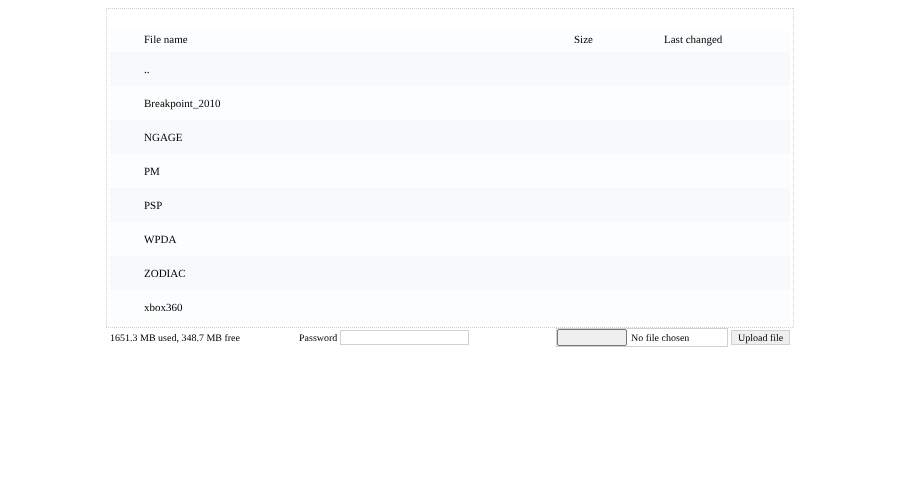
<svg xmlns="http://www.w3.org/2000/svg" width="900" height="500">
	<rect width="100%" height="100%" fill="#FFFFFF" />
	<path d="M106 8.5H794" fill="none" stroke="#CDD2D6" stroke-dasharray="1 1" />
	<path d="M793.5 8V328" fill="none" stroke="#CDD2D6" stroke-dasharray="1 1" />
	<path d="M106 327.5H794" fill="none" stroke="#CDD2D6" stroke-dasharray="1 1" />
	<path d="M106.5 8V328" fill="none" stroke="#CDD2D6" stroke-dasharray="1 1" />
	<rect x="110" y="30" width="680" height="22" fill="#FCFDFE" />
	<g font-family="Liberation Serif" font-size="11" fill="#000000">
		<text x="144" y="43">File name</text>
		<text x="574" y="43">Size</text>
		<text x="664" y="43">Last changed</text>
	</g>
	<rect x="110" y="52" width="680" height="34" fill="#F8F9FA" />
	<text x="144" y="73" font-family="Liberation Serif" font-size="11" fill="#000000">..</text>
	<rect x="110" y="86" width="680" height="34" fill="#FCFDFE" />
	<text x="144" y="107" font-family="Liberation Serif" font-size="11" fill="#000000">Breakpoint_2010</text>
	<rect x="110" y="120" width="680" height="34" fill="#F8F9FA" />
	<text x="144" y="141" font-family="Liberation Serif" font-size="11" fill="#000000">NGAGE</text>
	<rect x="110" y="154" width="680" height="34" fill="#FCFDFE" />
	<text x="144" y="175" font-family="Liberation Serif" font-size="11" fill="#000000">PM</text>
	<rect x="110" y="188" width="680" height="34" fill="#F8F9FA" />
	<text x="144" y="209" font-family="Liberation Serif" font-size="11" fill="#000000">PSP</text>
	<rect x="110" y="222" width="680" height="34" fill="#FCFDFE" />
	<text x="144" y="243" font-family="Liberation Serif" font-size="11" fill="#000000">WPDA</text>
	<rect x="110" y="256" width="680" height="34" fill="#F8F9FA" />
	<text x="144" y="277" font-family="Liberation Serif" font-size="11" fill="#000000">ZODIAC</text>
	<rect x="110" y="290" width="680" height="34" fill="#FCFDFE" />
	<text x="144" y="311" font-family="Liberation Serif" font-size="11" fill="#000000">xbox360</text>
	<g font-family="Liberation Serif" font-size="10" fill="#000000">
		<text x="110" y="341">1651.3 MB used, 348.7 MB free</text>
		<text x="299" y="341">Password</text>
	</g>
	<rect x="340.5" y="330.5" width="128" height="14" fill="none" stroke="#CDD2D6" />
	<rect x="556.5" y="328.5" width="171" height="18" fill="none" stroke="#CDD2D6" />
	<rect x="557.5" y="329.5" width="69" height="16" rx="1.5" fill="#EFEFEF" stroke="#767676" />
	<text x="631" y="341" font-family="Liberation Serif" font-size="10" fill="#000000">No file chosen</text>
	<rect x="731.5" y="330.5" width="58" height="14" fill="#EFEFEF" stroke="#CDD2D6" />
	<text x="738" y="341" font-family="Liberation Serif" font-size="10" fill="#000000">Upload file</text>
</svg>
